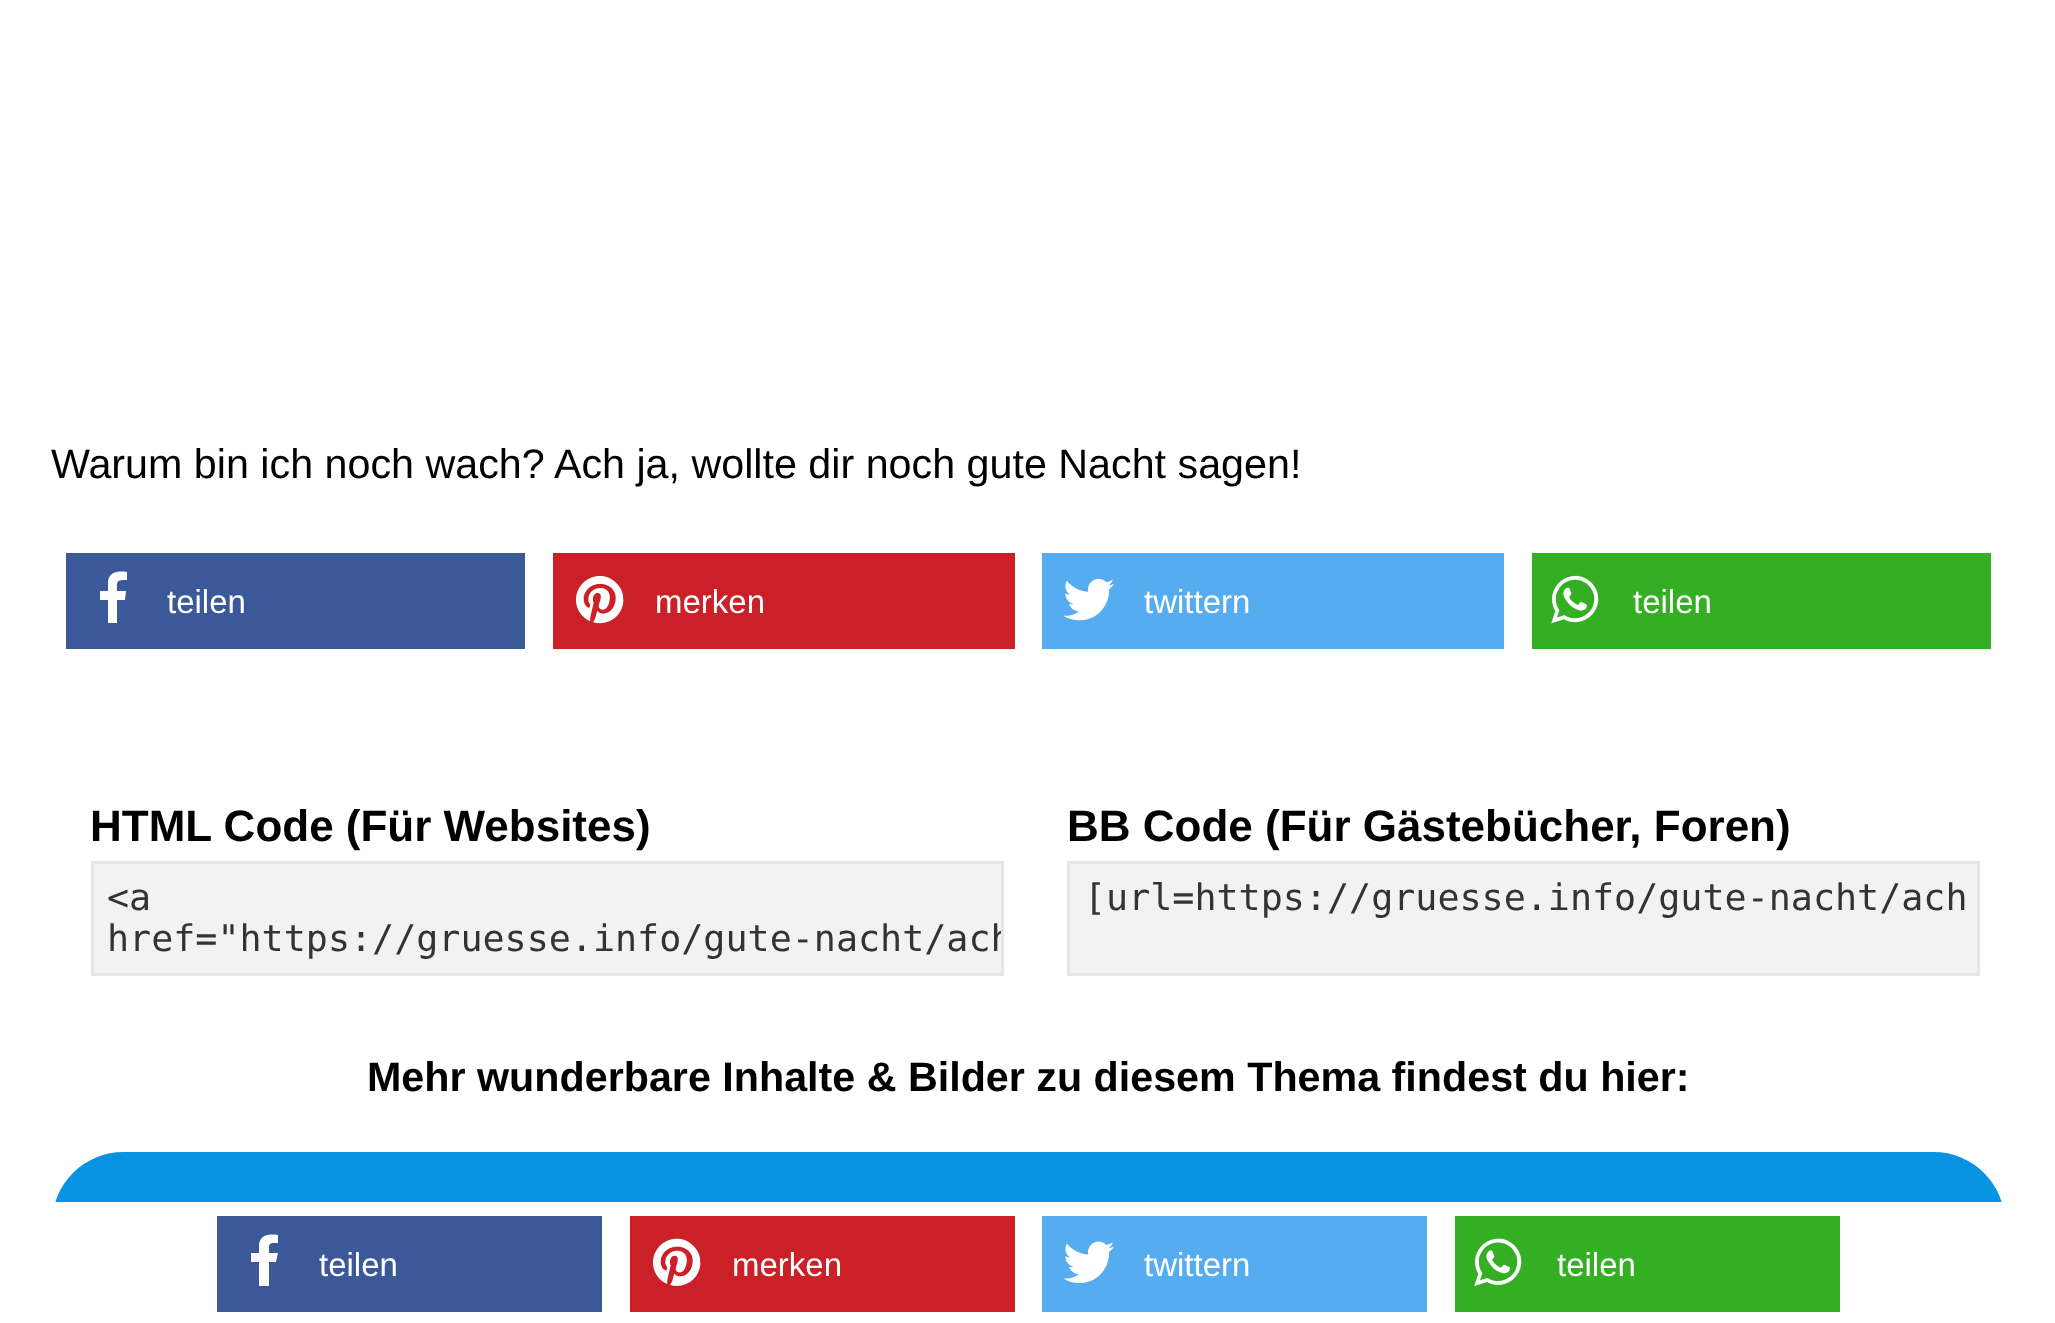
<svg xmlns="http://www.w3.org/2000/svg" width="2055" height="1323">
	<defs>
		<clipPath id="clip1"><rect x="94" y="864" width="907" height="110" /></clipPath>
	</defs>
	<rect width="100%" height="100%" fill="#FFFFFF" />
	<text x="51" y="478" font-family="Liberation Sans" font-size="41.25" fill="#000000">Warum bin ich noch wach? Ach ja, wollte dir noch gute Nacht sagen!</text>
	<rect x="66" y="553" width="459" height="96" fill="#3B5998" />
	<path d="M127 572V580C116 580 117 581 117 591H126L125 600H117V623H108V600H100V591H108V581C110 571 119 571 127 572Z" fill="#FFFFFF" />
	<text x="167" y="613" font-family="Liberation Sans" font-size="33" fill="#FFFFFF">teilen</text>
	<rect x="553" y="553" width="462" height="96" fill="#CB2027" />
	<image x="575" y="575" width="49" height="49" href="assets/img1.png" />
	<text x="655" y="613" font-family="Liberation Sans" font-size="33" fill="#FFFFFF">merken</text>
	<rect x="1042" y="553" width="462" height="96" fill="#55ACEE" />
	<image x="1063" y="578" width="51" height="43" href="assets/img2.png" />
	<text x="1144" y="613" font-family="Liberation Sans" font-size="33" fill="#FFFFFF">twittern</text>
	<rect x="1532" y="553" width="459" height="96" fill="#34AF23" />
	<image x="1551" y="575" width="48" height="49" href="assets/img3.png" />
	<text x="1633" y="613" font-family="Liberation Sans" font-size="33" fill="#FFFFFF">teilen</text>
	<text x="90" y="841" font-family="Liberation Sans" font-size="44" font-weight="700" fill="#000000">HTML Code (Für Websites)</text>
	<rect x="92.5" y="862.5" width="910" height="112" fill="#F2F2F2" stroke="#E6E6E6" stroke-width="3" />
	<text x="107" y="910" font-family="DejaVu Sans Mono" font-size="36.7" fill="#333333">&lt;a</text>
	<g clip-path="url(#clip1)">
		<text x="107" y="951" font-family="DejaVu Sans Mono" font-size="36.7" fill="#333333">href="https://gruesse.info/gute-nacht/ach</text>
	</g>
	<text x="1067" y="841" font-family="Liberation Sans" font-size="44" font-weight="700" fill="#000000">BB Code (Für Gästebücher, Foren)</text>
	<rect x="1068.5" y="862.5" width="910" height="112" fill="#F2F2F2" stroke="#E6E6E6" stroke-width="3" />
	<text x="1084" y="910" font-family="DejaVu Sans Mono" font-size="36.7" fill="#333333">[url=https://gruesse.info/gute-nacht/ach</text>
	<text x="367" y="1091" font-family="Liberation Sans" font-size="41.25" font-weight="700" fill="#000000">Mehr wunderbare Inhalte &amp; Bilder zu diesem Thema findest du hier:</text>
	<rect x="52" y="1152" width="1953" height="143" rx="71.5" fill="#0693E3" />
	<rect x="52" y="1202" width="1953" height="93" fill="#FFFFFF" />
	<rect x="217" y="1216" width="385" height="96" fill="#3B5998" />
	<path d="M278 1235V1243C268 1243 269 1243 269 1253H278L276 1262H269V1286H259V1262H251V1253H259V1244C261 1234 270 1234 278 1235Z" fill="#FFFFFF" />
	<text x="319" y="1276" font-family="Liberation Sans" font-size="33" fill="#FFFFFF">teilen</text>
	<rect x="630" y="1216" width="385" height="96" fill="#CB2027" />
	<image x="652" y="1238" width="49" height="48" href="assets/img4.png" />
	<text x="732" y="1276" font-family="Liberation Sans" font-size="33" fill="#FFFFFF">merken</text>
	<rect x="1042" y="1216" width="385" height="96" fill="#55ACEE" />
	<image x="1063" y="1241" width="51" height="43" href="assets/img5.png" />
	<text x="1144" y="1276" font-family="Liberation Sans" font-size="33" fill="#FFFFFF">twittern</text>
	<rect x="1455" y="1216" width="385" height="96" fill="#34AF23" />
	<image x="1474" y="1238" width="48" height="49" href="assets/img6.png" />
	<text x="1557" y="1276" font-family="Liberation Sans" font-size="33" fill="#FFFFFF">teilen</text>
</svg>
